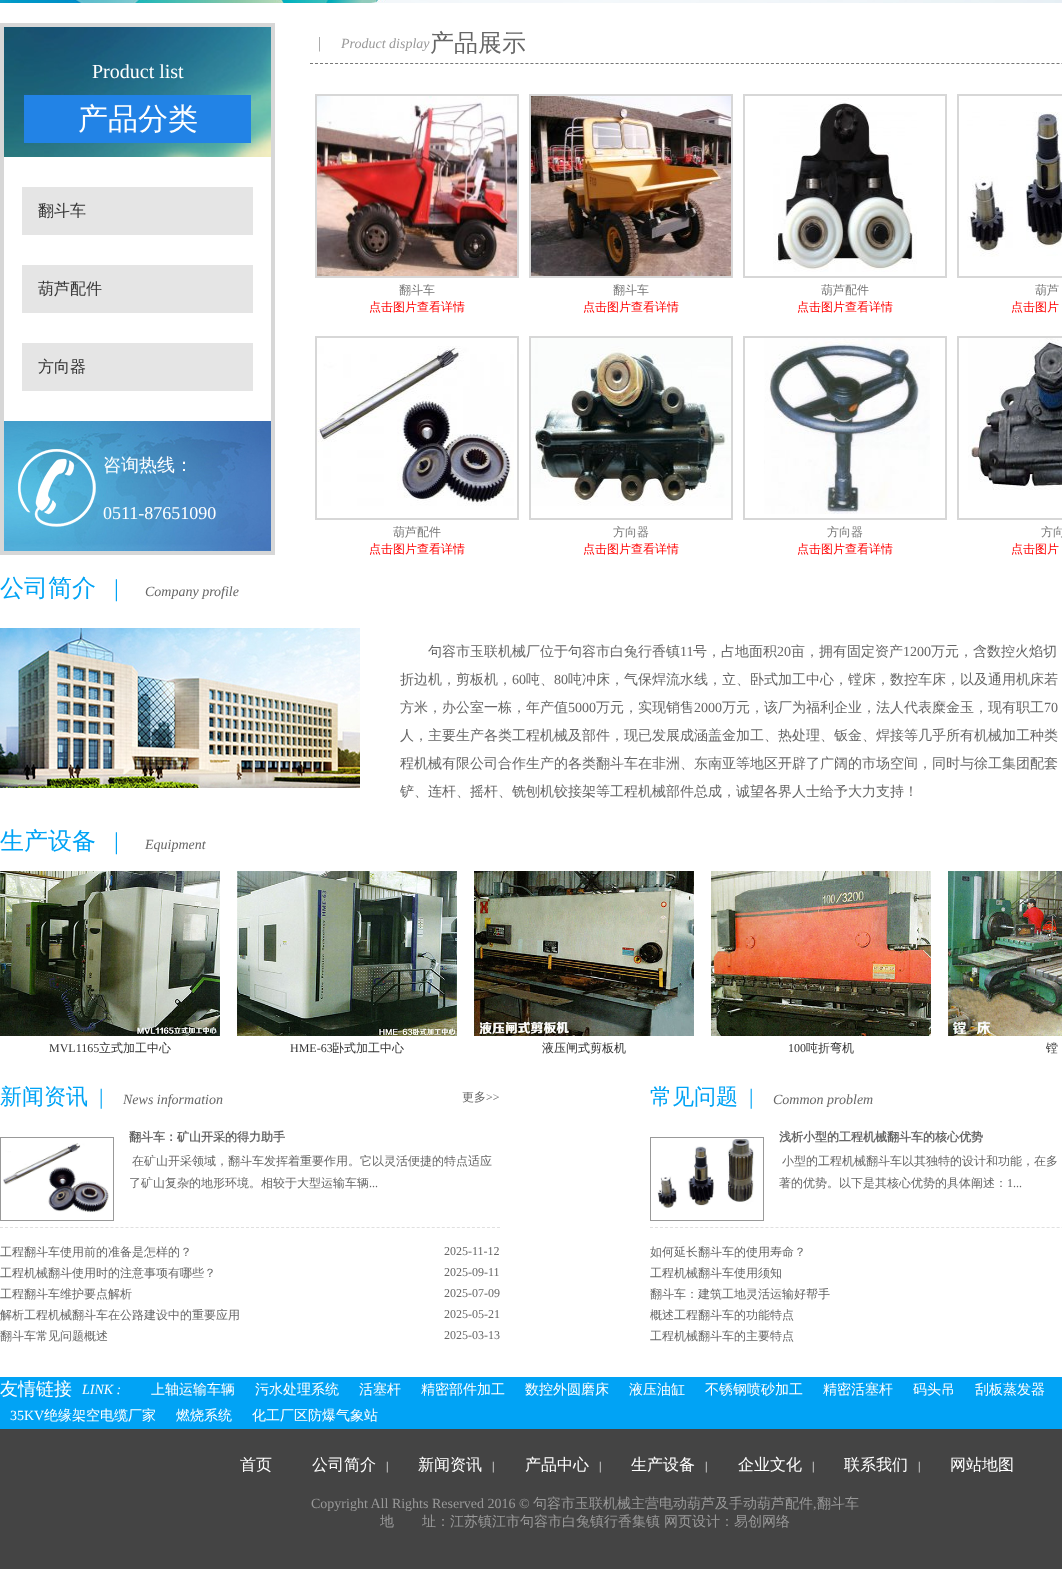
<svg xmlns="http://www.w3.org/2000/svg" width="1062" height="1569">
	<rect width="100%" height="100%" fill="#FFFFFF" />
	<image x="0" y="0" width="1062" height="3" href="assets/img1.png" />
	<rect x="2" y="25" width="271" height="528" fill="none" stroke="#D7D7D7" stroke-width="4" />
	<image x="4" y="27" width="267" height="130" href="assets/img2.png" />
	<text x="92" y="78" font-family="Liberation Serif" font-size="20" fill="#FFFFFF">Product list</text>
	<rect x="24" y="95" width="227" height="48" fill="#2283E6" />
	<text x="78" y="129" font-family="WenQuanYi Zen Hei" font-size="30" font-weight="500" fill="#FFFFFF">产品分类</text>
	<rect x="22" y="187" width="231" height="48" fill="#E5E5E5" />
	<text x="38" y="216" font-family="WenQuanYi Zen Hei" font-size="16" font-weight="500" fill="#333333">翻斗车</text>
	<rect x="22" y="265" width="231" height="48" fill="#E5E5E5" />
	<text x="38" y="294" font-family="WenQuanYi Zen Hei" font-size="16" font-weight="500" fill="#333333">葫芦配件</text>
	<rect x="22" y="343" width="231" height="48" fill="#E5E5E5" />
	<text x="38" y="372" font-family="WenQuanYi Zen Hei" font-size="16" font-weight="500" fill="#333333">方向器</text>
	<image x="4" y="421" width="267" height="130" href="assets/img3.png" />
	<text x="103" y="471" font-family="WenQuanYi Zen Hei" font-size="18" font-weight="500" fill="#FFFFFF">咨询热线：</text>
	<text x="103" y="519" font-family="Liberation Serif" font-size="18" fill="#FFFFFF">0511-87651090</text>
	<path d="M310 63.5H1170" fill="none" stroke="#777777" stroke-dasharray="3 2.01" />
	<text x="318" y="48" font-family="Liberation Serif" font-size="16" fill="#999999">|</text>
	<text x="341" y="48" font-family="Liberation Serif" font-size="14" font-style="italic" fill="#999999">Product display</text>
	<text x="430" y="51" font-family="WenQuanYi Zen Hei" font-size="24" font-weight="500" fill="#666666">产品展示</text>
	<rect x="316" y="95" width="202" height="182" fill="none" stroke="#D7D7D7" stroke-width="2" />
	<image x="317" y="96" width="200" height="180" href="assets/img4.png" />
	<text x="399" y="294" font-family="WenQuanYi Zen Hei" font-size="12" font-weight="500" fill="#777777">翻斗车</text>
	<text x="369" y="311" font-family="WenQuanYi Zen Hei" font-size="12" font-weight="500" fill="#FF0000">点击图片查看详情</text>
	<rect x="530" y="95" width="202" height="182" fill="none" stroke="#D7D7D7" stroke-width="2" />
	<image x="531" y="96" width="200" height="180" href="assets/img5.png" />
	<text x="613" y="294" font-family="WenQuanYi Zen Hei" font-size="12" font-weight="500" fill="#777777">翻斗车</text>
	<text x="583" y="311" font-family="WenQuanYi Zen Hei" font-size="12" font-weight="500" fill="#FF0000">点击图片查看详情</text>
	<rect x="744" y="95" width="202" height="182" fill="none" stroke="#D7D7D7" stroke-width="2" />
	<image x="773" y="98" width="144" height="174" href="assets/img6.png" />
	<text x="821" y="294" font-family="WenQuanYi Zen Hei" font-size="12" font-weight="500" fill="#777777">葫芦配件</text>
	<text x="797" y="311" font-family="WenQuanYi Zen Hei" font-size="12" font-weight="500" fill="#FF0000">点击图片查看详情</text>
	<rect x="958" y="95" width="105" height="182" fill="none" stroke="#D7D7D7" stroke-width="2" />
	<image x="967" y="112" width="95" height="145" href="assets/img7.png" />
	<text x="1035" y="294" font-family="WenQuanYi Zen Hei" font-size="12" font-weight="500" fill="#777777">葫芦</text>
	<text x="1011" y="311" font-family="WenQuanYi Zen Hei" font-size="12" font-weight="500" fill="#FF0000">点击图片</text>
	<rect x="316" y="337" width="202" height="182" fill="none" stroke="#D7D7D7" stroke-width="2" />
	<image x="317" y="346" width="197" height="160" href="assets/img8.png" />
	<text x="393" y="536" font-family="WenQuanYi Zen Hei" font-size="12" font-weight="500" fill="#777777">葫芦配件</text>
	<text x="369" y="553" font-family="WenQuanYi Zen Hei" font-size="12" font-weight="500" fill="#FF0000">点击图片查看详情</text>
	<rect x="530" y="337" width="202" height="182" fill="none" stroke="#D7D7D7" stroke-width="2" />
	<image x="531" y="338" width="200" height="168" href="assets/img9.png" />
	<text x="613" y="536" font-family="WenQuanYi Zen Hei" font-size="12" font-weight="500" fill="#777777">方向器</text>
	<text x="583" y="553" font-family="WenQuanYi Zen Hei" font-size="12" font-weight="500" fill="#FF0000">点击图片查看详情</text>
	<rect x="744" y="337" width="202" height="182" fill="none" stroke="#D7D7D7" stroke-width="2" />
	<image x="764" y="338" width="166" height="176" href="assets/img10.png" />
	<text x="827" y="536" font-family="WenQuanYi Zen Hei" font-size="12" font-weight="500" fill="#777777">方向器</text>
	<text x="797" y="553" font-family="WenQuanYi Zen Hei" font-size="12" font-weight="500" fill="#FF0000">点击图片查看详情</text>
	<rect x="958" y="337" width="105" height="182" fill="none" stroke="#D7D7D7" stroke-width="2" />
	<image x="968" y="338" width="94" height="152" href="assets/img11.png" />
	<text x="1041" y="536" font-family="WenQuanYi Zen Hei" font-size="12" font-weight="500" fill="#777777">方向</text>
	<text x="1011" y="553" font-family="WenQuanYi Zen Hei" font-size="12" font-weight="500" fill="#FF0000">点击图片</text>
	<text x="0" y="596" font-family="WenQuanYi Zen Hei" font-size="24" font-weight="500" fill="#01A3F5">公司简介</text>
	<text x="114" y="596" font-family="Liberation Serif" font-size="24" fill="#01A3F5">|</text>
	<text x="145" y="596" font-family="Liberation Serif" font-size="14" font-style="italic" fill="#666666">Company profile</text>
	<image x="0" y="628" width="360" height="160" href="assets/img12.png" />
	<text x="428" y="656" font-family="WenQuanYi Zen Hei" font-size="14" font-weight="500" fill="#666666">句容市玉联机械厂位于句容市白兔行香镇</text>
	<text x="680" y="656" font-family="Liberation Serif" font-size="14" fill="#666666">11</text>
	<text x="693" y="656" font-family="WenQuanYi Zen Hei" font-size="14" font-weight="500" fill="#666666">号，占地面积</text>
	<text x="777" y="656" font-family="Liberation Serif" font-size="14" fill="#666666">20</text>
	<text x="791" y="656" font-family="WenQuanYi Zen Hei" font-size="14" font-weight="500" fill="#666666">亩，拥有固定资产</text>
	<text x="903" y="656" font-family="Liberation Serif" font-size="14" fill="#666666">1200</text>
	<g font-family="WenQuanYi Zen Hei" font-size="14" font-weight="500" fill="#666666">
		<text x="931" y="656">万元，含数控火焰切</text>
		<text x="400" y="684">折边机，剪板机，</text>
	</g>
	<text x="512" y="684" font-family="Liberation Serif" font-size="14" fill="#666666">60</text>
	<text x="526" y="684" font-family="WenQuanYi Zen Hei" font-size="14" font-weight="500" fill="#666666">吨、</text>
	<text x="554" y="684" font-family="Liberation Serif" font-size="14" fill="#666666">80</text>
	<g font-family="WenQuanYi Zen Hei" font-size="14" font-weight="500" fill="#666666">
		<text x="568" y="684" word-spacing="-1">吨冲床，气保焊流水线，立、卧式加工中心，镗床，数控车床，以及通用机床若</text>
		<text x="400" y="712">方米，办公室一栋，年产值</text>
	</g>
	<text x="568" y="712" font-family="Liberation Serif" font-size="14" fill="#666666">5000</text>
	<text x="596" y="712" font-family="WenQuanYi Zen Hei" font-size="14" font-weight="500" fill="#666666">万元，实现销售</text>
	<text x="694" y="712" font-family="Liberation Serif" font-size="14" fill="#666666">2000</text>
	<text x="722" y="712" font-family="WenQuanYi Zen Hei" font-size="14" font-weight="500" fill="#666666">万元，该厂为福利企业，法人代表糜金玉，现有职工</text>
	<text x="1044" y="712" font-family="Liberation Serif" font-size="14" fill="#666666">70</text>
	<g font-family="WenQuanYi Zen Hei" font-size="14" font-weight="500" fill="#666666">
		<text x="400" y="740">人，主要生产各类工程机械及部件，现已发展成涵盖金加工、热处理、钣金、焊接等几乎所有机械加工种类</text>
		<text x="400" y="768">程机械有限公司合作生产的各类翻斗车在非洲、东南亚等地区开辟了广阔的市场空间，同时与徐工集团配套</text>
		<text x="400" y="796">铲、连杆、摇杆、铣刨机铰接架等工程机械部件总成，诚望各界人士给予大力支持！</text>
	</g>
	<text x="0" y="849" font-family="WenQuanYi Zen Hei" font-size="24" font-weight="500" fill="#01A3F5">生产设备</text>
	<text x="114" y="849" font-family="Liberation Serif" font-size="24" fill="#01A3F5">|</text>
	<text x="145" y="849" font-family="Liberation Serif" font-size="14" font-style="italic" fill="#666666">Equipment</text>
	<image x="0" y="871" width="220" height="165" href="assets/img13.png" />
	<text x="49" y="1052" font-family="Liberation Serif" font-size="12" fill="#333333">MVL1165</text>
	<text x="99" y="1052" font-family="WenQuanYi Zen Hei" font-size="12" font-weight="500" fill="#333333">立式加工中心</text>
	<image x="237" y="871" width="220" height="165" href="assets/img14.png" />
	<text x="290" y="1052" font-family="Liberation Serif" font-size="12" fill="#333333">HME-63</text>
	<text x="332" y="1052" font-family="WenQuanYi Zen Hei" font-size="12" font-weight="500" fill="#333333">卧式加工中心</text>
	<image x="474" y="871" width="220" height="165" href="assets/img15.png" />
	<text x="542" y="1052" font-family="WenQuanYi Zen Hei" font-size="12" font-weight="500" fill="#333333">液压闸式剪板机</text>
	<image x="711" y="871" width="220" height="165" href="assets/img16.png" />
	<text x="788" y="1052" font-family="Liberation Serif" font-size="12" fill="#333333">100</text>
	<text x="806" y="1052" font-family="WenQuanYi Zen Hei" font-size="12" font-weight="500" fill="#333333">吨折弯机</text>
	<image x="948" y="871" width="114" height="165" href="assets/img17.png" />
	<text x="1046" y="1052" font-family="WenQuanYi Zen Hei" font-size="12" font-weight="500" fill="#333333">镗</text>
	<text x="0" y="1104" font-family="WenQuanYi Zen Hei" font-size="22" font-weight="500" fill="#01A3F5">新闻资讯</text>
	<text x="99" y="1104" font-family="Liberation Serif" font-size="22" fill="#01A3F5">|</text>
	<text x="123" y="1104" font-family="Liberation Serif" font-size="14" font-style="italic" fill="#666666">News information</text>
	<text x="462" y="1101" font-family="WenQuanYi Zen Hei" font-size="12" font-weight="500" fill="#666666">更多</text>
	<text x="486" y="1101" font-family="Liberation Serif" font-size="12" fill="#666666">&gt;&gt;</text>
	<path d="M0 1227.5H500" fill="none" stroke="#E0E0E0" stroke-dasharray="3 2.02" />
	<rect x="0.5" y="1137.5" width="113" height="83" fill="none" stroke="#999999" />
	<image x="3" y="1143" width="106" height="70" href="assets/img18.png" />
	<text x="129" y="1141" font-family="WenQuanYi Zen Hei" font-size="12" font-weight="700" fill="#666666">翻斗车：矿山开采的得力助手</text>
	<g font-family="WenQuanYi Zen Hei" font-size="12" font-weight="500" fill="#666666">
		<text x="132" y="1165">在矿山开采领域，翻斗车发挥着重要作用。它以灵活便捷的特点适应</text>
		<text x="129" y="1187">了矿山复杂的地形环境。相较于大型运输车辆</text>
	</g>
	<text x="369" y="1187" font-family="Liberation Serif" font-size="12" fill="#666666">...</text>
	<text x="0" y="1256" font-family="WenQuanYi Zen Hei" font-size="12" font-weight="500" fill="#666666">工程翻斗车使用前的准备是怎样的？</text>
	<text x="444" y="1255" font-family="Liberation Serif" font-size="12" fill="#666666">2025-11-12</text>
	<text x="0" y="1277" font-family="WenQuanYi Zen Hei" font-size="12" font-weight="500" fill="#666666">工程机械翻斗使用时的注意事项有哪些？</text>
	<text x="444" y="1276" font-family="Liberation Serif" font-size="12" fill="#666666">2025-09-11</text>
	<text x="0" y="1298" font-family="WenQuanYi Zen Hei" font-size="12" font-weight="500" fill="#666666">工程翻斗车维护要点解析</text>
	<text x="444" y="1297" font-family="Liberation Serif" font-size="12" fill="#666666">2025-07-09</text>
	<text x="0" y="1319" font-family="WenQuanYi Zen Hei" font-size="12" font-weight="500" fill="#666666">解析工程机械翻斗车在公路建设中的重要应用</text>
	<text x="444" y="1318" font-family="Liberation Serif" font-size="12" fill="#666666">2025-05-21</text>
	<text x="0" y="1340" font-family="WenQuanYi Zen Hei" font-size="12" font-weight="500" fill="#666666">翻斗车常见问题概述</text>
	<text x="444" y="1339" font-family="Liberation Serif" font-size="12" fill="#666666">2025-03-13</text>
	<text x="650" y="1104" font-family="WenQuanYi Zen Hei" font-size="22" font-weight="500" fill="#01A3F5">常见问题</text>
	<text x="749" y="1104" font-family="Liberation Serif" font-size="22" fill="#01A3F5">|</text>
	<text x="773" y="1104" font-family="Liberation Serif" font-size="14" font-style="italic" fill="#666666">Common problem</text>
	<path d="M650 1227.5H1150" fill="none" stroke="#E0E0E0" stroke-dasharray="3 2.02" />
	<rect x="650.5" y="1137.5" width="113" height="83" fill="none" stroke="#999999" />
	<image x="657" y="1139" width="98" height="69" href="assets/img19.png" />
	<text x="779" y="1141" font-family="WenQuanYi Zen Hei" font-size="12" font-weight="700" fill="#666666">浅析小型的工程机械翻斗车的核心优势</text>
	<g font-family="WenQuanYi Zen Hei" font-size="12" font-weight="500" fill="#666666">
		<text x="782" y="1165">小型的工程机械翻斗车以其独特的设计和功能，在多</text>
		<text x="779" y="1187">著的优势。以下是其核心优势的具体阐述：</text>
	</g>
	<text x="1007" y="1187" font-family="Liberation Serif" font-size="12" fill="#666666">1...</text>
	<g font-family="WenQuanYi Zen Hei" font-size="12" font-weight="500" fill="#666666">
		<text x="650" y="1256">如何延长翻斗车的使用寿命？</text>
		<text x="650" y="1277">工程机械翻斗车使用须知</text>
		<text x="650" y="1298">翻斗车：建筑工地灵活运输好帮手</text>
		<text x="650" y="1319">概述工程翻斗车的功能特点</text>
		<text x="650" y="1340">工程机械翻斗车的主要特点</text>
	</g>
	<rect x="0" y="1377" width="1062" height="52" fill="#01A3F5" />
	<text x="0" y="1395" font-family="WenQuanYi Zen Hei" font-size="18" font-weight="500" fill="#FFFFFF">友情链接</text>
	<text x="82" y="1394" font-family="Liberation Serif" font-size="14" font-style="italic" fill="#FFFFFF">LINK :</text>
	<g font-family="WenQuanYi Zen Hei" font-size="14" font-weight="500" fill="#FFFFFF">
		<text x="151" y="1394">上轴运输车辆</text>
		<text x="255" y="1394">污水处理系统</text>
		<text x="359" y="1394">活塞杆</text>
		<text x="421" y="1394">精密部件加工</text>
		<text x="525" y="1394">数控外圆磨床</text>
		<text x="629" y="1394">液压油缸</text>
		<text x="705" y="1394">不锈钢喷砂加工</text>
		<text x="823" y="1394">精密活塞杆</text>
		<text x="913" y="1394">码头吊</text>
		<text x="975" y="1394">刮板蒸发器</text>
	</g>
	<text x="10" y="1420" font-family="Liberation Serif" font-size="14" fill="#FFFFFF">35KV</text>
	<g font-family="WenQuanYi Zen Hei" font-size="14" font-weight="500" fill="#FFFFFF">
		<text x="44" y="1420">绝缘架空电缆厂家</text>
		<text x="176" y="1420">燃烧系统</text>
		<text x="252" y="1420">化工厂区防爆气象站</text>
	</g>
	<rect x="0" y="1429" width="1062" height="140" fill="#444444" />
	<g font-family="WenQuanYi Zen Hei" font-size="16" font-weight="500" fill="#FFFFFF">
		<text x="240" y="1470">首页</text>
		<text x="312" y="1470">公司简介</text>
	</g>
	<text x="386" y="1470" font-family="Liberation Serif" font-size="12" fill="#FFFFFF">|</text>
	<text x="418" y="1470" font-family="WenQuanYi Zen Hei" font-size="16" font-weight="500" fill="#FFFFFF">新闻资讯</text>
	<text x="492" y="1470" font-family="Liberation Serif" font-size="12" fill="#FFFFFF">|</text>
	<text x="525" y="1470" font-family="WenQuanYi Zen Hei" font-size="16" font-weight="500" fill="#FFFFFF">产品中心</text>
	<text x="599" y="1470" font-family="Liberation Serif" font-size="12" fill="#FFFFFF">|</text>
	<text x="631" y="1470" font-family="WenQuanYi Zen Hei" font-size="16" font-weight="500" fill="#FFFFFF">生产设备</text>
	<text x="705" y="1470" font-family="Liberation Serif" font-size="12" fill="#FFFFFF">|</text>
	<text x="738" y="1470" font-family="WenQuanYi Zen Hei" font-size="16" font-weight="500" fill="#FFFFFF">企业文化</text>
	<text x="812" y="1470" font-family="Liberation Serif" font-size="12" fill="#FFFFFF">|</text>
	<text x="844" y="1470" font-family="WenQuanYi Zen Hei" font-size="16" font-weight="500" fill="#FFFFFF">联系我们</text>
	<text x="918" y="1470" font-family="Liberation Serif" font-size="12" fill="#FFFFFF">|</text>
	<text x="950" y="1470" font-family="WenQuanYi Zen Hei" font-size="16" font-weight="500" fill="#FFFFFF">网站地图</text>
	<text x="311" y="1508" font-family="Liberation Serif" font-size="14" fill="#999999">Copyright All Rights Reserved 2016 ©</text>
	<text x="533" y="1508" font-family="WenQuanYi Zen Hei" font-size="14" font-weight="500" fill="#999999">句容市玉联机械主营电动葫芦及手动葫芦配件</text>
	<text x="813" y="1508" font-family="Liberation Serif" font-size="14" fill="#999999">,</text>
	<g font-family="WenQuanYi Zen Hei" font-size="14" font-weight="500" fill="#999999">
		<text x="817" y="1508">翻斗车</text>
		<text x="380" y="1526">地　　址：江苏镇江市句容市白兔镇行香集镇</text>
		<text x="664" y="1526">网页设计：易创网络</text>
	</g>
</svg>
